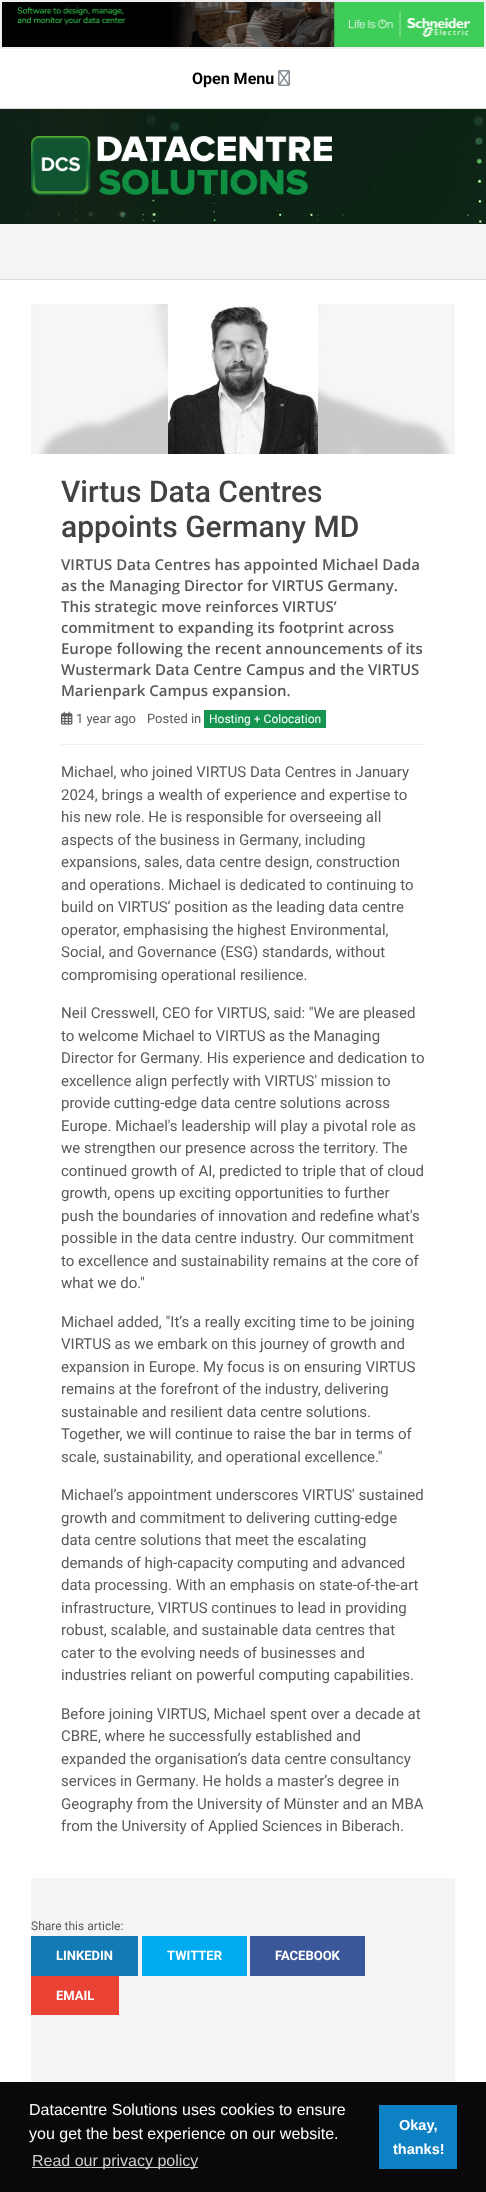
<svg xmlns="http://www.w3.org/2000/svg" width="486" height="2192">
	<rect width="100%" height="100%" fill="#FFFFFF" />
	<rect x="2" y="2" width="15" height="45" fill="#000000" />
	<rect x="0.5" y="0.5" width="485" height="48" fill="none" stroke="#EEEEEE" />
	<rect x="1.5" y="1.5" width="483" height="46" fill="none" stroke="#EEEEEE" />
	<image x="17" y="2" width="467" height="45" href="assets/img1.png" />
	<rect x="0" y="108" width="486" height="1" fill="#DBDBDB" />
	<text x="192" y="84" font-family="Roboto" font-size="16" font-weight="700" fill="#000000">Open Menu</text>
	<image x="278" y="70" width="12" height="16" href="assets/img2.png" />
	<image x="0" y="109" width="486" height="115" href="assets/img3.png" />
	<image x="31" y="136" width="301" height="59" href="assets/img4.png" />
	<rect x="0" y="224" width="486" height="55" fill="#F4F4F4" />
	<rect x="0" y="279" width="486" height="1" fill="#DBDBDB" />
	<rect x="31" y="304" width="424" height="150" fill="#F4F4F4" />
	<image x="38" y="304" width="413" height="150" href="assets/img5.png" />
	<image x="168" y="304" width="150" height="150" href="assets/img6.png" />
	<rect x="31" y="1878" width="424" height="204" fill="#F4F4F4" />
	<g font-family="Roboto" font-size="30" font-weight="500" fill="#424242">
		<text x="61" y="502">Virtus Data Centres</text>
		<text x="61" y="537">appoints Germany MD</text>
	</g>
	<g font-family="Open Sans" font-size="15" font-weight="600" fill="#5A5A5A">
		<text x="61" y="570">VIRTUS Data Centres has appointed Michael Dada</text>
		<text x="61" y="591">as the Managing Director for VIRTUS Germany.</text>
		<text x="61" y="612">This strategic move reinforces VIRTUS’</text>
		<text x="61" y="633">commitment to expanding its footprint across</text>
		<text x="61" y="654">Europe following the recent announcements of its</text>
		<text x="61" y="675">Wustermark Data Centre Campus and the VIRTUS</text>
		<text x="61" y="696">Marienpark Campus expansion.</text>
	</g>
	<rect x="61" y="744" width="364" height="1" fill="#EFEFEF" />
	<image x="61" y="711" width="12" height="14" href="assets/img7.png" />
	<g font-family="Roboto" font-size="13" fill="#5A5A5A">
		<text x="76" y="723">1 year ago</text>
		<text x="147" y="723">Posted in</text>
	</g>
	<rect x="204" y="710" width="122" height="18" fill="#14944F" />
	<text x="209" y="723" font-family="Roboto" font-size="12" fill="#FFFFFF">Hosting + Colocation</text>
	<g font-family="Roboto" font-size="15" fill="#5A5A5A">
		<text x="61" y="777">Michael, who joined VIRTUS Data Centres in January</text>
		<text x="61" y="800">2024, brings a wealth of experience and expertise to</text>
		<text x="61" y="822">his new role. He is responsible for overseeing all</text>
		<text x="61" y="845">aspects of the business in Germany, including</text>
		<text x="61" y="867">expansions, sales, data centre design, construction</text>
		<text x="61" y="890">and operations. Michael is dedicated to continuing to</text>
		<text x="61" y="912">build on VIRTUS’ position as the leading data centre</text>
		<text x="61" y="935">operator, emphasising the highest Environmental,</text>
		<text x="61" y="957">Social, and Governance (ESG) standards, without</text>
		<text x="61" y="980">compromising operational resilience.</text>
		<text x="61" y="1018">Neil Cresswell, CEO for VIRTUS, said: "We are pleased</text>
		<text x="61" y="1041">to welcome Michael to VIRTUS as the Managing</text>
		<text x="61" y="1063">Director for Germany. His experience and dedication to</text>
		<text x="61" y="1086">excellence align perfectly with VIRTUS' mission to</text>
		<text x="61" y="1108">provide cutting-edge data centre solutions across</text>
		<text x="61" y="1131">Europe. Michael's leadership will play a pivotal role as</text>
		<text x="61" y="1153">we strengthen our presence across the territory. The</text>
		<text x="61" y="1176">continued growth of AI, predicted to triple that of cloud</text>
		<text x="61" y="1198">growth, opens up exciting opportunities to further</text>
		<text x="61" y="1221">push the boundaries of innovation and redefine what's</text>
		<text x="61" y="1243">possible in the data centre industry. Our commitment</text>
		<text x="61" y="1266">to excellence and sustainability remains at the core of</text>
		<text x="61" y="1288">what we do."</text>
		<text x="61" y="1327">Michael added, "It’s a really exciting time to be joining</text>
		<text x="61" y="1349">VIRTUS as we embark on this journey of growth and</text>
		<text x="61" y="1372">expansion in Europe. My focus is on ensuring VIRTUS</text>
		<text x="61" y="1394">remains at the forefront of the industry, delivering</text>
		<text x="61" y="1417">sustainable and resilient data centre solutions.</text>
		<text x="61" y="1439">Together, we will continue to raise the bar in terms of</text>
		<text x="61" y="1462">scale, sustainability, and operational excellence."</text>
		<text x="61" y="1500">Michael’s appointment underscores VIRTUS' sustained</text>
		<text x="61" y="1523">growth and commitment to delivering cutting-edge</text>
		<text x="61" y="1545">data centre solutions that meet the escalating</text>
		<text x="61" y="1568">demands of high-capacity computing and advanced</text>
		<text x="61" y="1590">data processing. With an emphasis on state-of-the-art</text>
		<text x="61" y="1613">infrastructure, VIRTUS continues to lead in providing</text>
		<text x="61" y="1635">robust, scalable, and sustainable data centres that</text>
		<text x="61" y="1658">cater to the evolving needs of businesses and</text>
		<text x="61" y="1680">industries reliant on powerful computing capabilities.</text>
		<text x="61" y="1719">Before joining VIRTUS, Michael spent over a decade at</text>
		<text x="61" y="1741">CBRE, where he successfully established and</text>
		<text x="61" y="1764">expanded the organisation’s data centre consultancy</text>
		<text x="61" y="1786">services in Germany. He holds a master’s degree in</text>
		<text x="61" y="1809">Geography from the University of Münster and an MBA</text>
		<text x="61" y="1831">from the University of Applied Sciences in Biberach.</text>
	</g>
	<text x="31" y="1930" font-family="Roboto" font-size="12" fill="#5A5A5A">Share this article:</text>
	<rect x="31" y="1936" width="107" height="40" fill="#127BB6" />
	<text x="56" y="1960" font-family="Roboto" font-size="13" font-weight="700" fill="#FFFFFF">LINKEDIN</text>
	<rect x="142" y="1936" width="105" height="40" fill="#00ABF0" />
	<text x="167" y="1960" font-family="Roboto" font-size="13" font-weight="700" fill="#FFFFFF">TWITTER</text>
	<rect x="250" y="1936" width="115" height="40" fill="#3A579A" />
	<text x="275" y="1960" font-family="Roboto" font-size="13" font-weight="700" fill="#FFFFFF">FACEBOOK</text>
	<rect x="31" y="1976" width="88" height="39" fill="#EA4335" />
	<text x="56" y="2000" font-family="Roboto" font-size="13" font-weight="700" fill="#FFFFFF">EMAIL</text>
	<rect x="0" y="2082" width="486" height="110" fill="#090909" />
	<g font-family="Liberation Sans" font-size="16" fill="#FFFFFF">
		<text x="29" y="2115">Datacentre Solutions uses cookies to ensure</text>
		<text x="29" y="2139">you get the best experience on our website.</text>
	</g>
	<rect x="32" y="2167" width="166" height="1" fill="#CECECE" />
	<text x="32" y="2166" font-family="Liberation Sans" font-size="16" fill="#CECECE">Read our privacy policy</text>
	<rect x="379" y="2105" width="78" height="64" fill="#0D81C4" />
	<g font-family="Liberation Sans" font-size="14.5" font-weight="700" fill="#FFFFFF">
		<text x="399" y="2130">Okay,</text>
		<text x="393" y="2154">thanks!</text>
	</g>
</svg>
